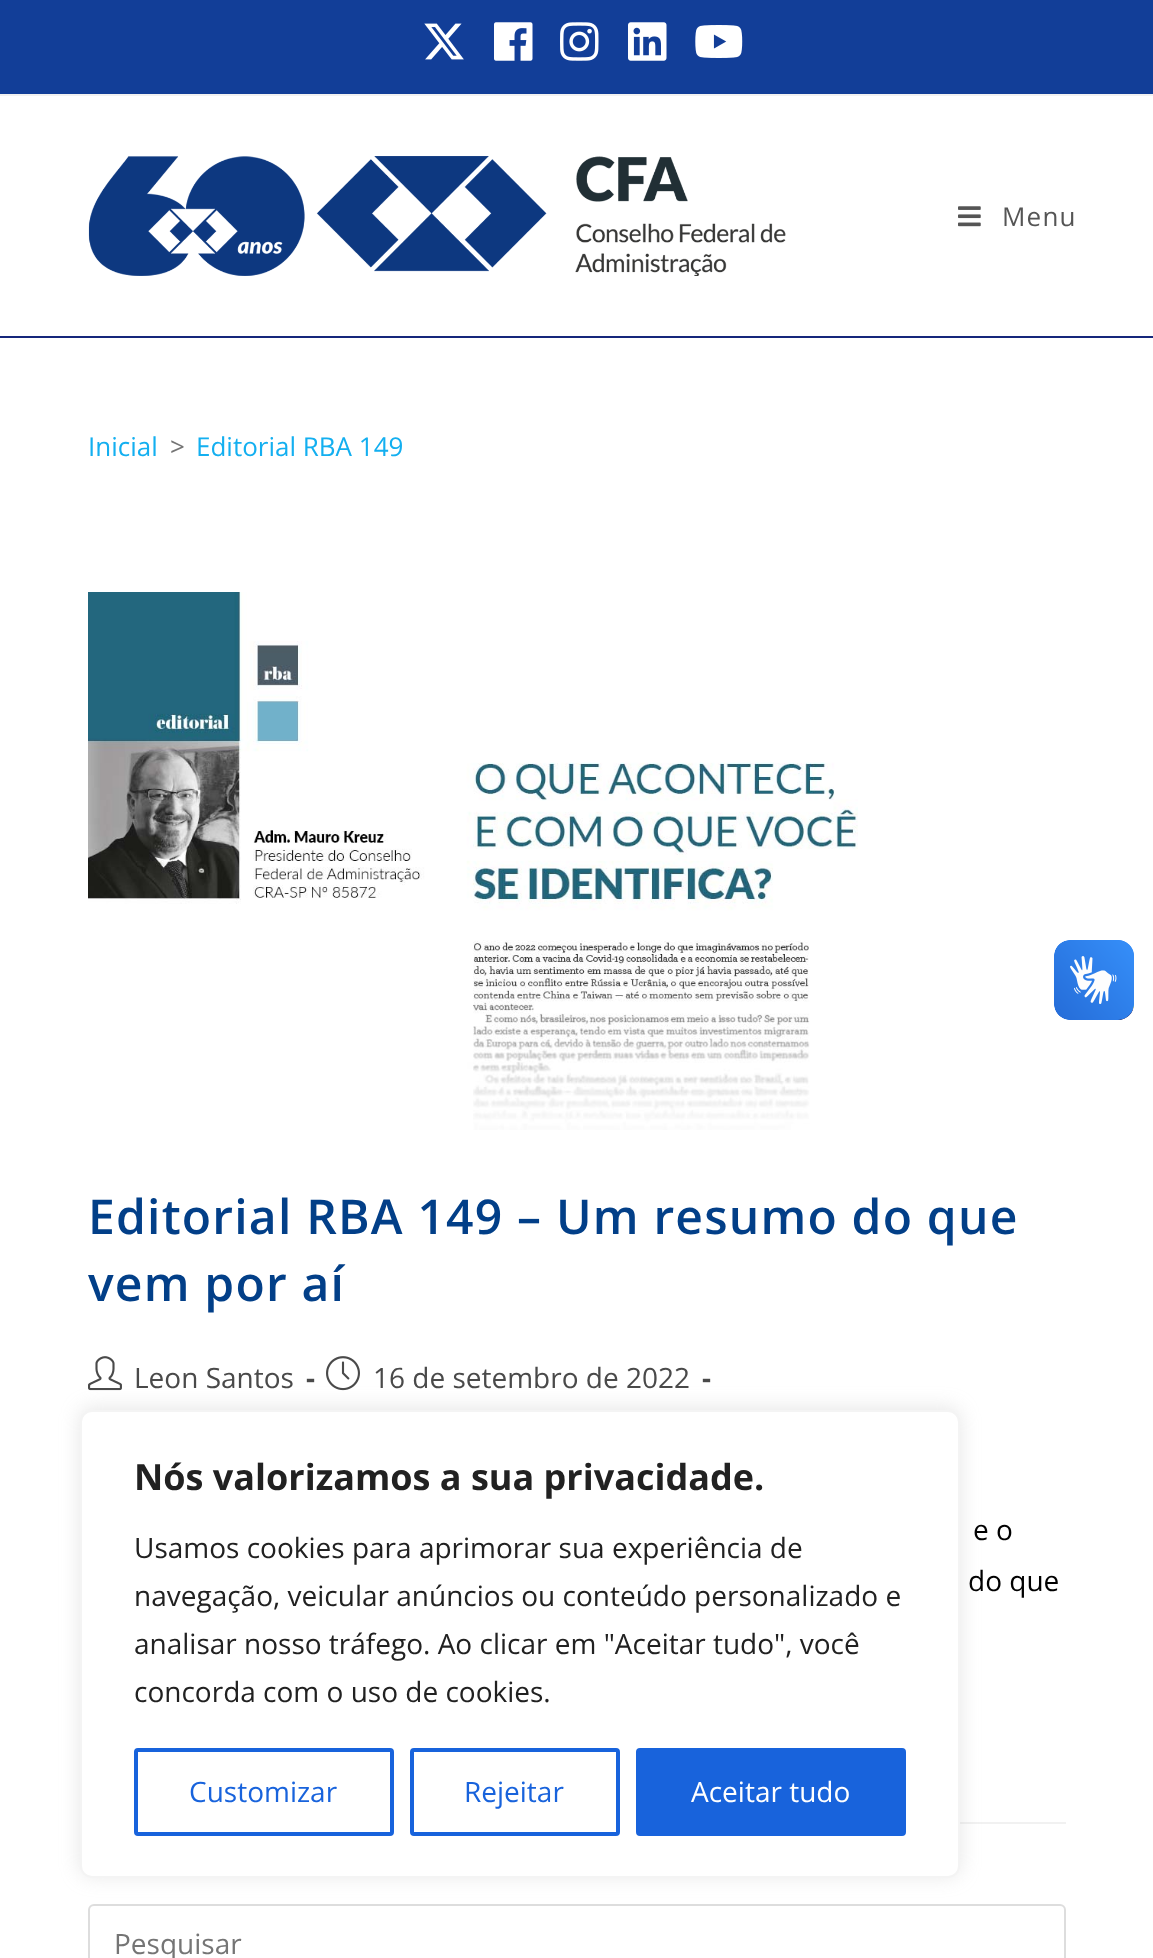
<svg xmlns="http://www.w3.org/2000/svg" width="1153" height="1958">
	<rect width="100%" height="100%" fill="#FFFFFF" />
	<rect x="0" y="0" width="1153" height="94" fill="#123E98" />
	<rect x="0" y="94" width="1153" height="2" fill="#F1F1F1" />
	<image x="424" y="23" width="40" height="37" href="assets/img1.png" />
	<image x="494" y="22" width="39" height="39" href="assets/img2.png" />
	<image x="560" y="22" width="39" height="39" href="assets/img3.png" />
	<image x="628" y="22" width="39" height="39" href="assets/img4.png" />
	<image x="695" y="25" width="48" height="33" href="assets/img5.png" />
	<rect x="0" y="336" width="1153" height="2" fill="#15267B" />
	<image x="88" y="156" width="698" height="120" href="assets/img6.png" />
	<image x="958" y="206" width="23" height="21" href="assets/img7.png" />
	<text x="1002" y="226" font-family="Open Sans" font-size="26" letter-spacing="1.2" fill="#555555">Menu</text>
	<text x="88" y="456" font-family="Open Sans" font-size="26" fill="#13AFF0">Inicial</text>
	<text x="170" y="456" font-family="Open Sans" font-size="26" fill="#757575">&gt;</text>
	<text x="196" y="456" font-family="Open Sans" font-size="26" fill="#13AFF0">Editorial RBA 149</text>
	<rect x="960" y="1822" width="106" height="2" fill="#F1F1F1" />
	<image x="88" y="592" width="770" height="538" href="assets/img8.png" />
	<g font-family="Open Sans" font-size="48" font-weight="600" letter-spacing="1.2" fill="#023F88">
		<text x="88" y="1234">Editorial RBA 149 – Um resumo do que</text>
		<text x="88" y="1301">vem por aí</text>
	</g>
	<image x="88" y="1356" width="34" height="35" href="assets/img9.png" />
	<text x="134" y="1388" font-family="Open Sans" font-size="28" fill="#4A4A4A">Leon Santos</text>
	<text x="306" y="1388" font-family="Open Sans" font-size="28" font-weight="700" fill="#4A4A4A">-</text>
	<image x="326" y="1356" width="34" height="35" href="assets/img10.png" />
	<text x="373" y="1388" font-family="Open Sans" font-size="28" fill="#4A4A4A">16 de setembro de 2022</text>
	<text x="702" y="1388" font-family="Open Sans" font-size="28" font-weight="700" fill="#4A4A4A">-</text>
	<g font-family="Open Sans" font-size="28" fill="#000000">
		<text x="973" y="1540">e o</text>
		<text x="968" y="1591">do que</text>
	</g>
	<rect x="89" y="1905" width="976" height="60" rx="5" fill="none" stroke="#DDDDDD" stroke-width="2" />
	<text x="114" y="1954" font-family="Open Sans" font-size="28" fill="#757575">Pesquisar</text>
	<image x="1054" y="940" width="80" height="80" href="assets/img11.png" />
	<image x="1054" y="940" width="80" height="80" href="assets/img12.png" />
	<rect x="80" y="1408" width="880" height="468" rx="12" fill="#ACABAB" fill-opacity="0.3" filter="blur(10px)" />
	<rect x="81" y="1411" width="878" height="466" rx="11" fill="#FFFFFF" stroke="#F4F4F4" stroke-width="2" />
	<text x="134" y="1490" font-family="Open Sans" font-size="36" font-weight="700" fill="#212121">Nós valorizamos a sua privacidade.</text>
	<g font-family="Open Sans" font-size="28" fill="#212121">
		<text x="134" y="1558">Usamos cookies para aprimorar sua experiência de</text>
		<text x="134" y="1606">navegação, veicular anúncios ou conteúdo personalizado e</text>
		<text x="134" y="1654">analisar nosso tráfego. Ao clicar em "Aceitar tudo", você</text>
		<text x="134" y="1702">concorda com o uso de cookies.</text>
	</g>
	<rect x="136" y="1750" width="256" height="84" rx="2" fill="none" stroke="#1863DC" stroke-width="4" />
	<text x="189" y="1802" font-family="Open Sans" font-size="28" fill="#1863DC">Customizar</text>
	<rect x="412" y="1750" width="206" height="84" rx="2" fill="none" stroke="#1863DC" stroke-width="4" />
	<text x="464" y="1802" font-family="Open Sans" font-size="28" fill="#1863DC">Rejeitar</text>
	<rect x="638" y="1750" width="266" height="84" rx="2" fill="#1863DC" stroke="#1863DC" stroke-width="4" />
	<text x="691" y="1802" font-family="Open Sans" font-size="28" fill="#FFFFFF">Aceitar tudo</text>
</svg>
